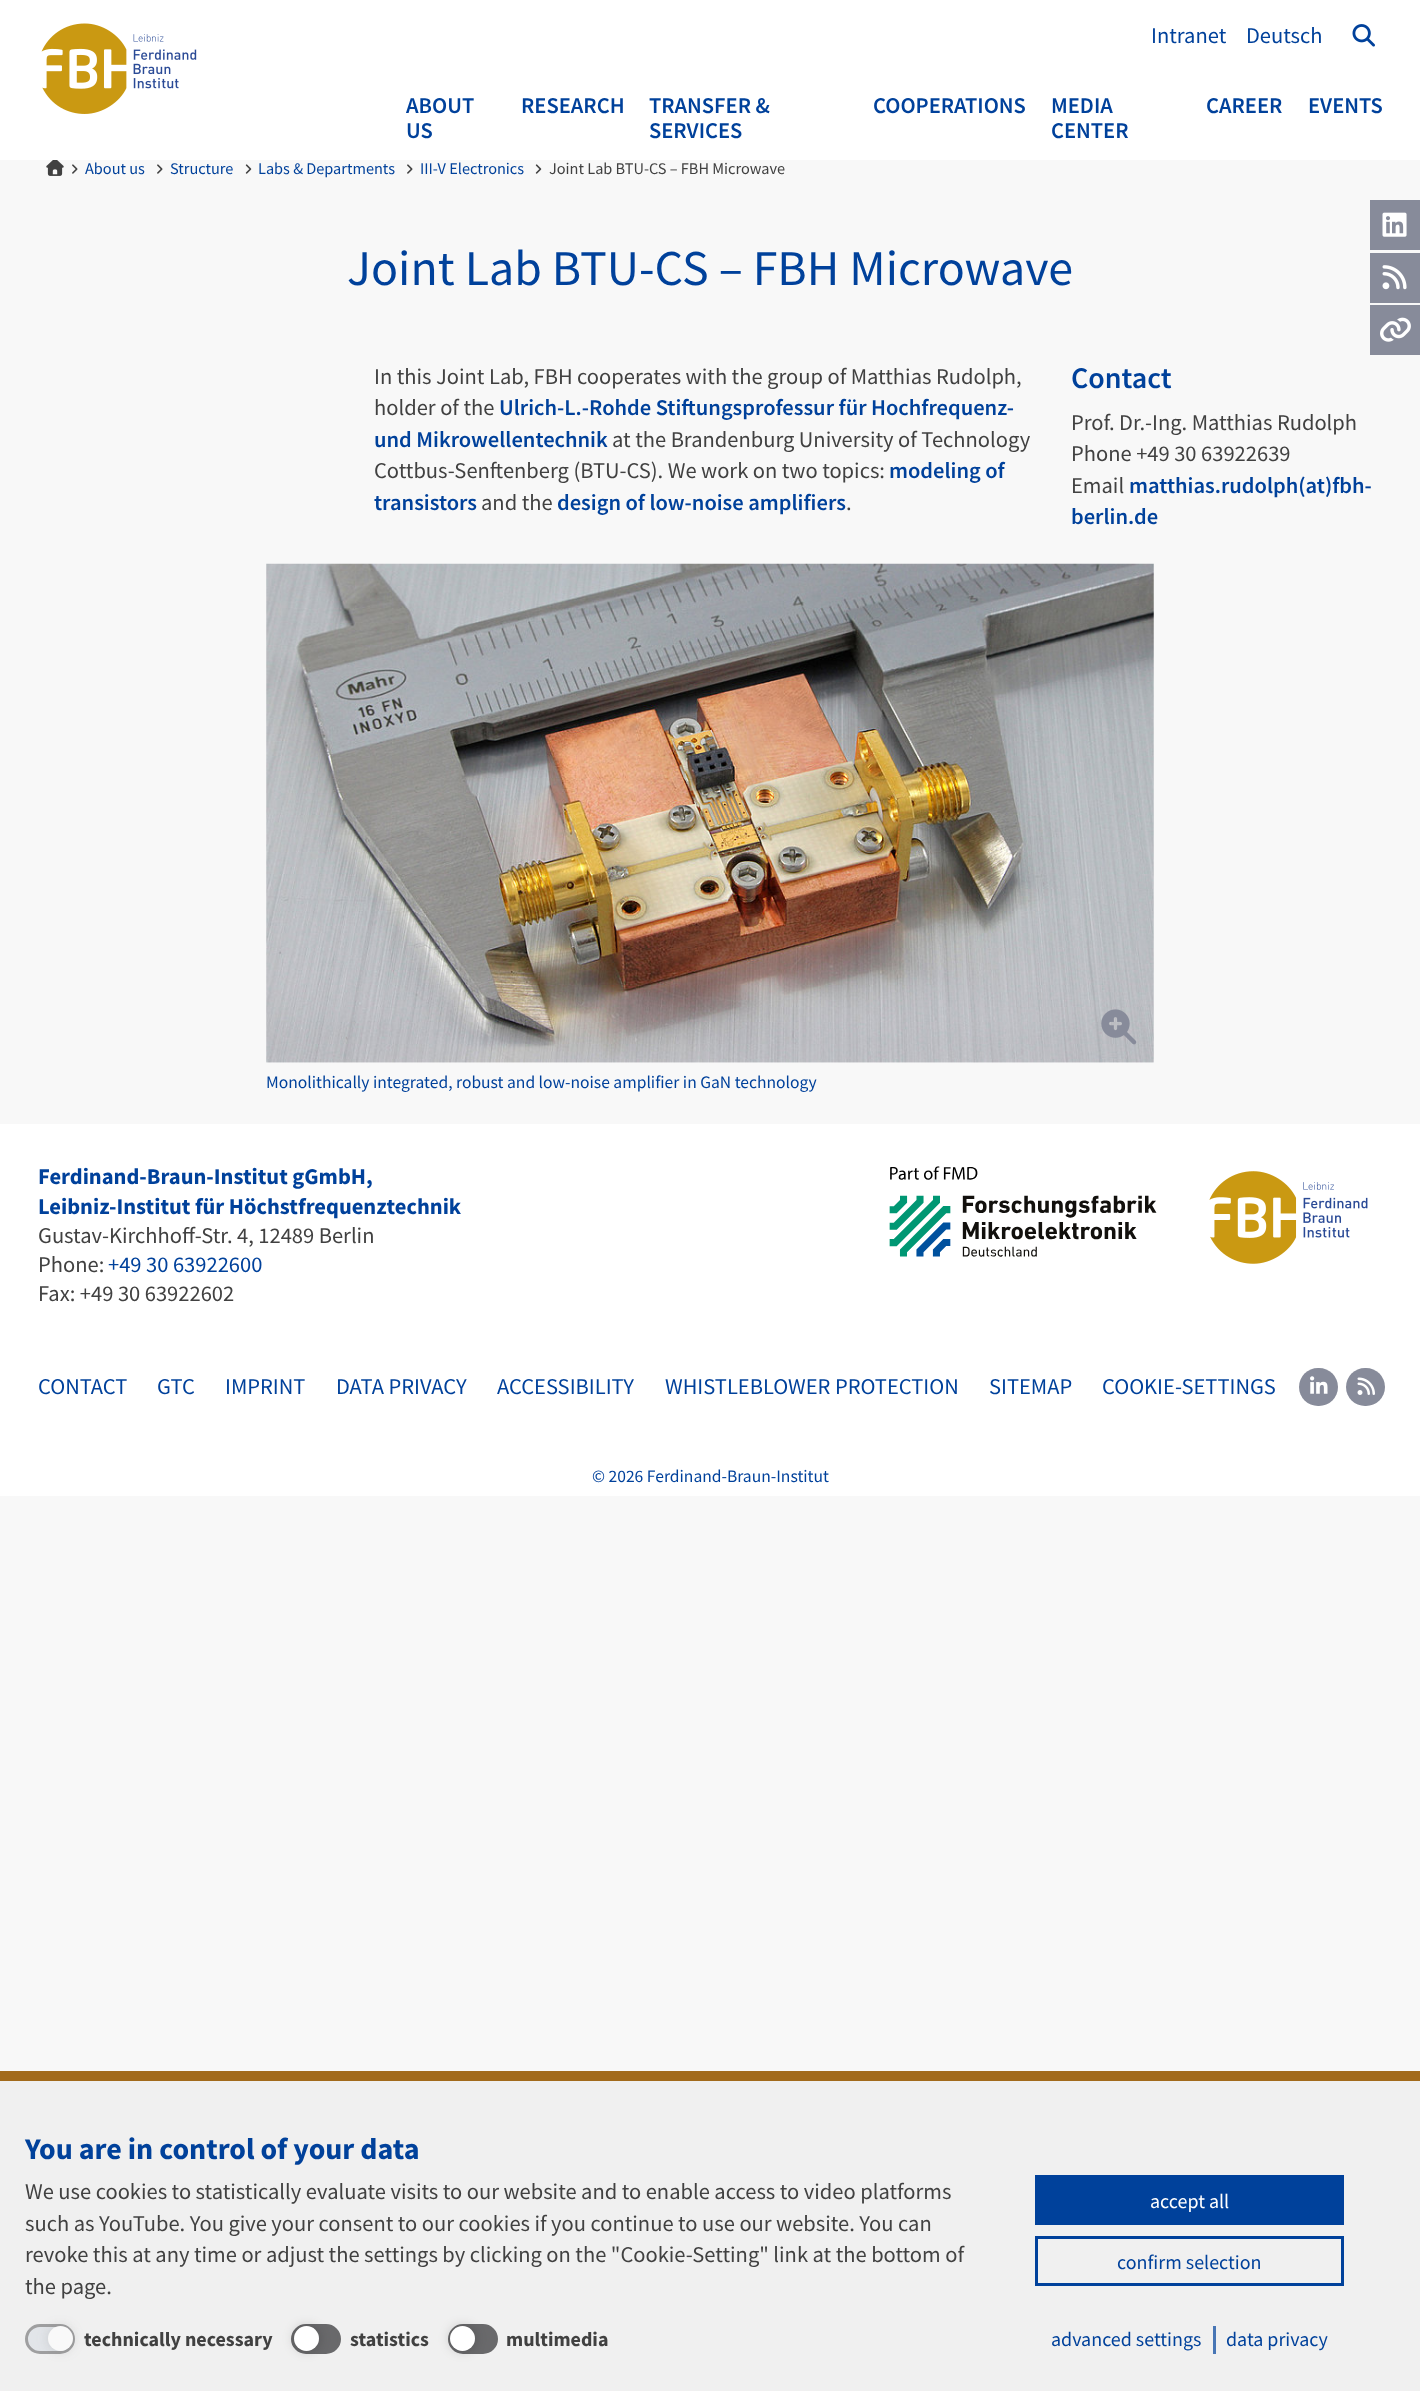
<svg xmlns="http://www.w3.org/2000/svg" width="1420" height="2391">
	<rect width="100%" height="100%" fill="#F8F8F8" />
	<rect x="0" y="0" width="1420" height="160" fill="#FFFFFF" />
	<image x="41" y="23" width="156" height="91" href="assets/img1.png" />
	<g font-family="Source Sans Pro" font-size="22.5" fill="#00419B">
		<text x="1151" y="43">Intranet</text>
		<text x="1246" y="43">Deutsch</text>
	</g>
	<image x="1352" y="24" width="23" height="23" href="assets/img2.png" />
	<g font-family="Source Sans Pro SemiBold" font-size="22.5" font-weight="600" fill="#00419B">
		<text x="406" y="113">ABOUT</text>
		<text x="406" y="138">US</text>
		<text x="521" y="113">RESEARCH</text>
		<text x="649" y="113">TRANSFER &amp;</text>
		<text x="649" y="138">SERVICES</text>
		<text x="873" y="113">COOPERATIONS</text>
		<text x="1051" y="113">MEDIA</text>
		<text x="1051" y="138">CENTER</text>
		<text x="1206" y="113">CAREER</text>
		<text x="1308" y="113">EVENTS</text>
	</g>
	<image x="46" y="160" width="18" height="16" href="assets/img3.png" />
	<image x="72" y="164" width="6" height="10" href="assets/img4.png" />
	<text x="85" y="174" font-family="Source Sans Pro" font-size="16.25" fill="#00419B">About us</text>
	<image x="157" y="164" width="6" height="10" href="assets/img4.png" />
	<text x="170" y="174" font-family="Source Sans Pro" font-size="16.25" fill="#00419B">Structure</text>
	<image x="245" y="164" width="7" height="10" href="assets/img5.png" />
	<text x="258" y="174" font-family="Source Sans Pro" font-size="16.25" fill="#00419B">Labs &amp; Departments</text>
	<image x="407" y="164" width="6" height="10" href="assets/img4.png" />
	<text x="420" y="174" font-family="Source Sans Pro" font-size="16.25" fill="#00419B">III-V Electronics</text>
	<image x="535" y="164" width="7" height="10" href="assets/img5.png" />
	<text x="549" y="174" font-family="Source Sans Pro" font-size="16.25" fill="#414141">Joint Lab BTU-CS – FBH Microwave</text>
	<text x="347" y="285" font-family="Source Sans Pro" font-size="50" fill="#00419B">Joint Lab BTU-CS – FBH Microwave</text>
	<rect x="1370" y="200" width="50" height="50" fill="#878B9A" />
	<image x="1382" y="212" width="25" height="25" href="assets/img6.png" />
	<rect x="1370" y="253" width="50" height="50" fill="#878B9A" />
	<image x="1382" y="265" width="25" height="25" href="assets/img7.png" />
	<rect x="1370" y="305" width="50" height="50" fill="#878B9A" />
	<image x="1380" y="317" width="31" height="25" href="assets/img8.png" />
	<g font-family="Source Sans Pro" font-size="22.5" fill="#414141">
		<text x="374" y="384">In this Joint Lab, FBH cooperates with the group of Matthias Rudolph,</text>
		<text x="374" y="415">holder of the</text>
	</g>
	<g font-family="Source Sans Pro SemiBold" font-size="22.5" font-weight="600" fill="#00419B">
		<text x="499" y="415">Ulrich-L.-Rohde Stiftungsprofessur für Hochfrequenz-</text>
		<text x="374" y="447">und Mikrowellentechnik</text>
	</g>
	<g font-family="Source Sans Pro" font-size="22.5" fill="#414141">
		<text x="612" y="447">at the Brandenburg University of Technology</text>
		<text x="374" y="478">Cottbus-Senftenberg (BTU-CS). We work on two topics:</text>
	</g>
	<g font-family="Source Sans Pro SemiBold" font-size="22.5" font-weight="600" fill="#00419B">
		<text x="889" y="478">modeling of</text>
		<text x="374" y="510">transistors</text>
	</g>
	<text x="481" y="510" font-family="Source Sans Pro" font-size="22.5" fill="#414141">and the</text>
	<text x="557" y="510" font-family="Source Sans Pro SemiBold" font-size="22.5" font-weight="600" fill="#00419B">design of low-noise amplifiers</text>
	<text x="846" y="510" font-family="Source Sans Pro" font-size="22.5" fill="#414141">.</text>
	<text x="1071" y="388" font-family="Source Sans Pro SemiBold" font-size="30" font-weight="600" fill="#00419B">Contact</text>
	<g font-family="Source Sans Pro" font-size="22.5" fill="#414141">
		<text x="1071" y="430">Prof. Dr.-Ing. Matthias Rudolph</text>
		<text x="1071" y="461">Phone +49 30 63922639</text>
		<text x="1071" y="493">Email</text>
	</g>
	<g font-family="Source Sans Pro SemiBold" font-size="22.5" font-weight="600" fill="#00419B">
		<text x="1129" y="493">matthias.rudolph(at)fbh-</text>
		<text x="1071" y="524">berlin.de</text>
	</g>
	<rect x="266" y="564" width="888" height="499" fill="#FFFFFF" />
	<image x="266" y="563" width="888" height="500" href="assets/img9.png" />
	<image x="1101" y="1009" width="36" height="36" href="assets/img10.png" />
	<text x="266" y="1088" font-family="Source Sans Pro" font-size="17.5" fill="#00419B">Monolithically integrated, robust and low-noise amplifier in GaN technology</text>
	<rect x="0" y="1124" width="1420" height="372" fill="#FFFFFF" />
	<g font-family="Source Sans Pro" font-size="22.5" font-weight="700" fill="#00419B">
		<text x="38" y="1184">Ferdinand-Braun-Institut gGmbH,</text>
		<text x="38" y="1214">Leibniz-Institut für Höchstfrequenztechnik</text>
	</g>
	<g font-family="Source Sans Pro" font-size="22.5" fill="#414141">
		<text x="38" y="1243">Gustav-Kirchhoff-Str. 4, 12489 Berlin</text>
		<text x="38" y="1272">Phone:</text>
	</g>
	<text x="108" y="1272" font-family="Source Sans Pro" font-size="22.5" fill="#00419B">+49 30 63922600</text>
	<text x="38" y="1301" font-family="Source Sans Pro" font-size="22.5" fill="#414141">Fax: +49 30 63922602</text>
	<image x="889" y="1166" width="268" height="91" href="assets/img11.png" />
	<image x="1209" y="1171" width="159" height="93" href="assets/img12.png" />
	<g font-family="Source Sans Pro" font-size="22.5" fill="#00419B">
		<text x="38" y="1394">CONTACT</text>
		<text x="157" y="1394">GTC</text>
		<text x="225" y="1394">IMPRINT</text>
		<text x="336" y="1394">DATA PRIVACY</text>
		<text x="497" y="1394">ACCESSIBILITY</text>
		<text x="665" y="1394">WHISTLEBLOWER PROTECTION</text>
		<text x="989" y="1394">SITEMAP</text>
		<text x="1102" y="1394">COOKIE-SETTINGS</text>
	</g>
	<rect x="1299" y="1368" width="39" height="38" rx="19" fill="#878B9A" />
	<image x="1310" y="1376" width="18" height="18" href="assets/img13.png" />
	<rect x="1346" y="1368" width="39" height="38" rx="19" fill="#878B9A" />
	<image x="1357" y="1377" width="18" height="18" href="assets/img14.png" />
	<text x="592" y="1482" font-family="Source Sans Pro" font-size="17.5" fill="#00419B">© 2026 Ferdinand-Braun-Institut</text>
	<rect x="0" y="2081" width="1420" height="310" fill="#F0F0F0" />
	<rect x="0" y="2071" width="1420" height="10" fill="#A26A1B" />
	<text x="25" y="2159" font-family="Source Sans Pro" font-size="30" font-weight="700" fill="#00419B">You are in control of your data</text>
	<g font-family="Source Sans Pro" font-size="22.5" fill="#414141">
		<text x="25" y="2199">We use cookies to statistically evaluate visits to our website and to enable access to video platforms</text>
		<text x="25" y="2231">such as YouTube. You give your consent to our cookies if you continue to use our website. You can</text>
		<text x="25" y="2262">revoke this at any time or adjust the settings by clicking on the "Cookie-Setting" link at the bottom of</text>
		<text x="25" y="2294">the page.</text>
	</g>
	<rect x="26.5" y="2325.5" width="47" height="27" rx="13.5" fill="#E2E5E9" stroke="#9F9FA0" stroke-width="3" />
	<rect x="48" y="2326" width="25" height="25" rx="12.5" fill="#606060" fill-opacity="0.2" filter="blur(6px)" />
	<circle cx="60.5" cy="2338.5" r="12.5" fill="#F9F9F9" />
	<text x="84" y="2346" font-family="Source Sans Pro" font-size="20" font-weight="700" fill="#414141">technically necessary</text>
	<rect x="292.5" y="2325.5" width="47" height="27" rx="13.5" fill="#69696B" stroke="#69696B" stroke-width="3" />
	<rect x="294" y="2326" width="25" height="25" rx="12.5" fill="#000000" fill-opacity="0.2" filter="blur(6px)" />
	<circle cx="306.5" cy="2338.5" r="12.5" fill="#FFFFFF" />
	<text x="350" y="2346" font-family="Source Sans Pro" font-size="20" font-weight="700" fill="#414141">statistics</text>
	<rect x="449.5" y="2325.5" width="47" height="27" rx="13.5" fill="#69696B" stroke="#69696B" stroke-width="3" />
	<rect x="450" y="2326" width="25" height="25" rx="12.5" fill="#000000" fill-opacity="0.2" filter="blur(6px)" />
	<circle cx="462.5" cy="2338.5" r="12.5" fill="#FFFFFF" />
	<text x="506" y="2346" font-family="Source Sans Pro" font-size="20" font-weight="700" fill="#414141">multimedia</text>
	<rect x="1035" y="2175" width="309" height="50" fill="#00419B" />
	<text x="1150" y="2208" font-family="Source Sans Pro" font-size="20" fill="#FFFFFF">accept all</text>
	<rect x="1036.5" y="2237.5" width="306" height="47" fill="none" stroke="#00419B" stroke-width="3" />
	<g font-family="Source Sans Pro" font-size="20" fill="#00419B">
		<text x="1117" y="2269">confirm selection</text>
		<text x="1051" y="2346">advanced settings</text>
	</g>
	<rect x="1213" y="2326" width="3" height="28" fill="#4876B5" />
	<text x="1226" y="2346" font-family="Source Sans Pro" font-size="20" fill="#00419B">data privacy</text>
</svg>
